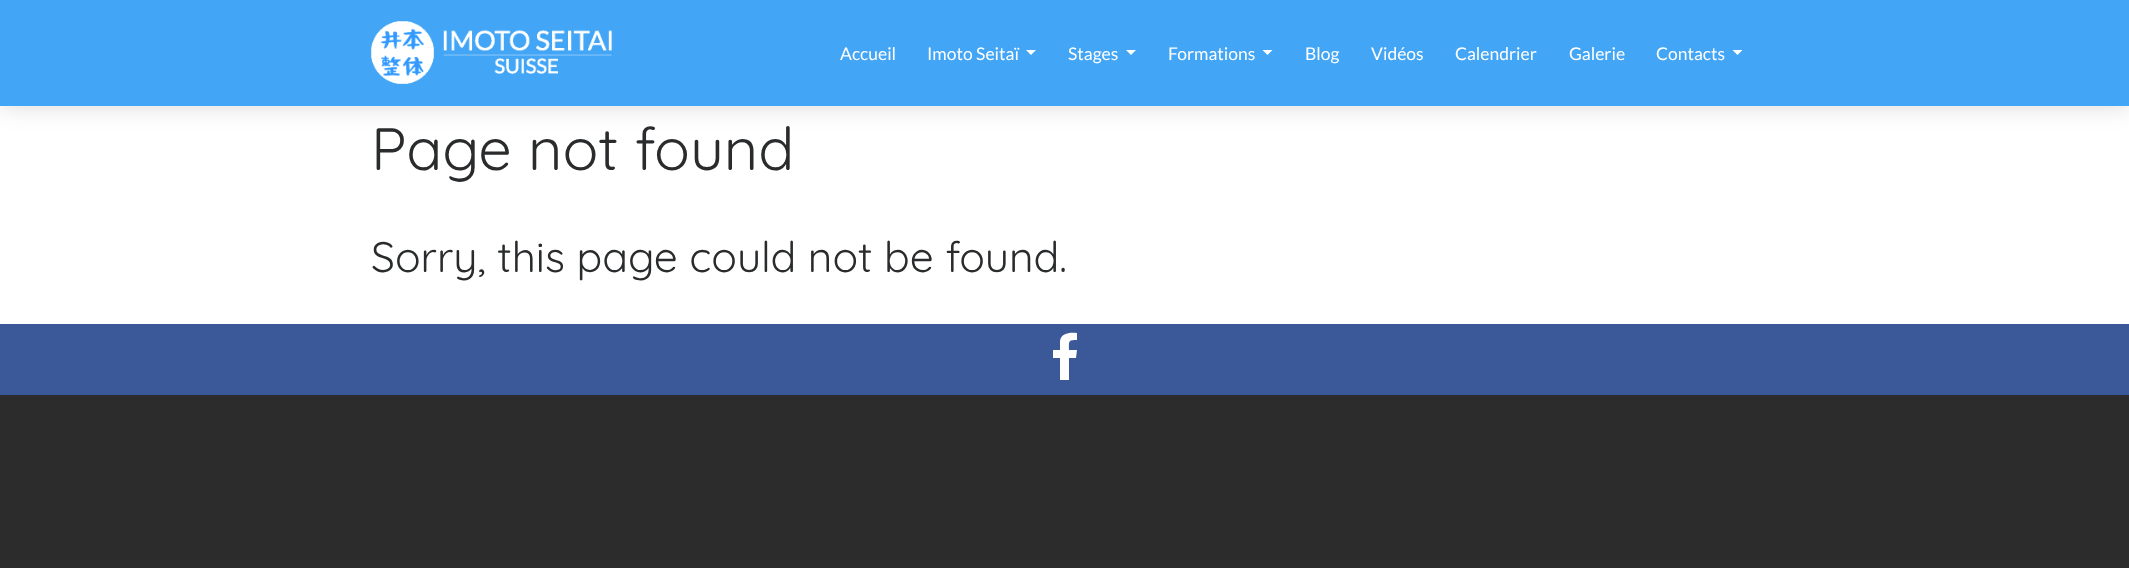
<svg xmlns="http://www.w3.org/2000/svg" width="2129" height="568">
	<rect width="100%" height="100%" fill="#FFFFFF" />
	<rect x="0" y="0" width="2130" height="106" fill="#000000" fill-opacity="0.15" filter="blur(12.5px)" />
	<rect x="0" y="0" width="2129" height="106" fill="#42A5F5" />
	<image x="371" y="21" width="242" height="63" href="assets/img1.png" />
	<g font-family="Lato" font-size="17.5" fill="#FFFFFF">
		<text x="840" y="60">Accueil</text>
		<text x="927" y="60">Imoto Seitaï</text>
	</g>
	<path d="M1026 50H1036L1031 55Z" fill="#FFFFFF" />
	<text x="1068" y="60" font-family="Lato" font-size="17.5" fill="#FFFFFF">Stages</text>
	<path d="M1126 50H1136L1131 55Z" fill="#FFFFFF" />
	<text x="1168" y="60" font-family="Lato" font-size="17.5" fill="#FFFFFF">Formations</text>
	<path d="M1262.5 50H1272.5L1267.5 55Z" fill="#FFFFFF" />
	<g font-family="Lato" font-size="17.5" fill="#FFFFFF">
		<text x="1305" y="60">Blog</text>
		<text x="1371" y="60">Vidéos</text>
		<text x="1455" y="60">Calendrier</text>
		<text x="1569" y="60">Galerie</text>
		<text x="1656" y="60">Contacts</text>
	</g>
	<path d="M1732.5 50H1742.5L1737.5 55Z" fill="#FFFFFF" />
	<text x="371" y="170" font-family="Quicksand" font-size="59.5" fill="#292B2C">Page not found</text>
	<text x="371" y="272" font-family="Quicksand" font-size="42.5" fill="#292B2C">Sorry, this page could not be found.</text>
	<rect x="0" y="395" width="2129" height="173" fill="#2C2C2C" />
	<rect x="0" y="324" width="2129" height="71" fill="#3B5998" />
	<path d="M1077 333V340C1068 340 1069 341 1069 350H1077L1076 358H1069V380H1060V358H1053V350H1060V341C1061 333 1070 332 1077 333Z" fill="#FFFFFF" />
</svg>
